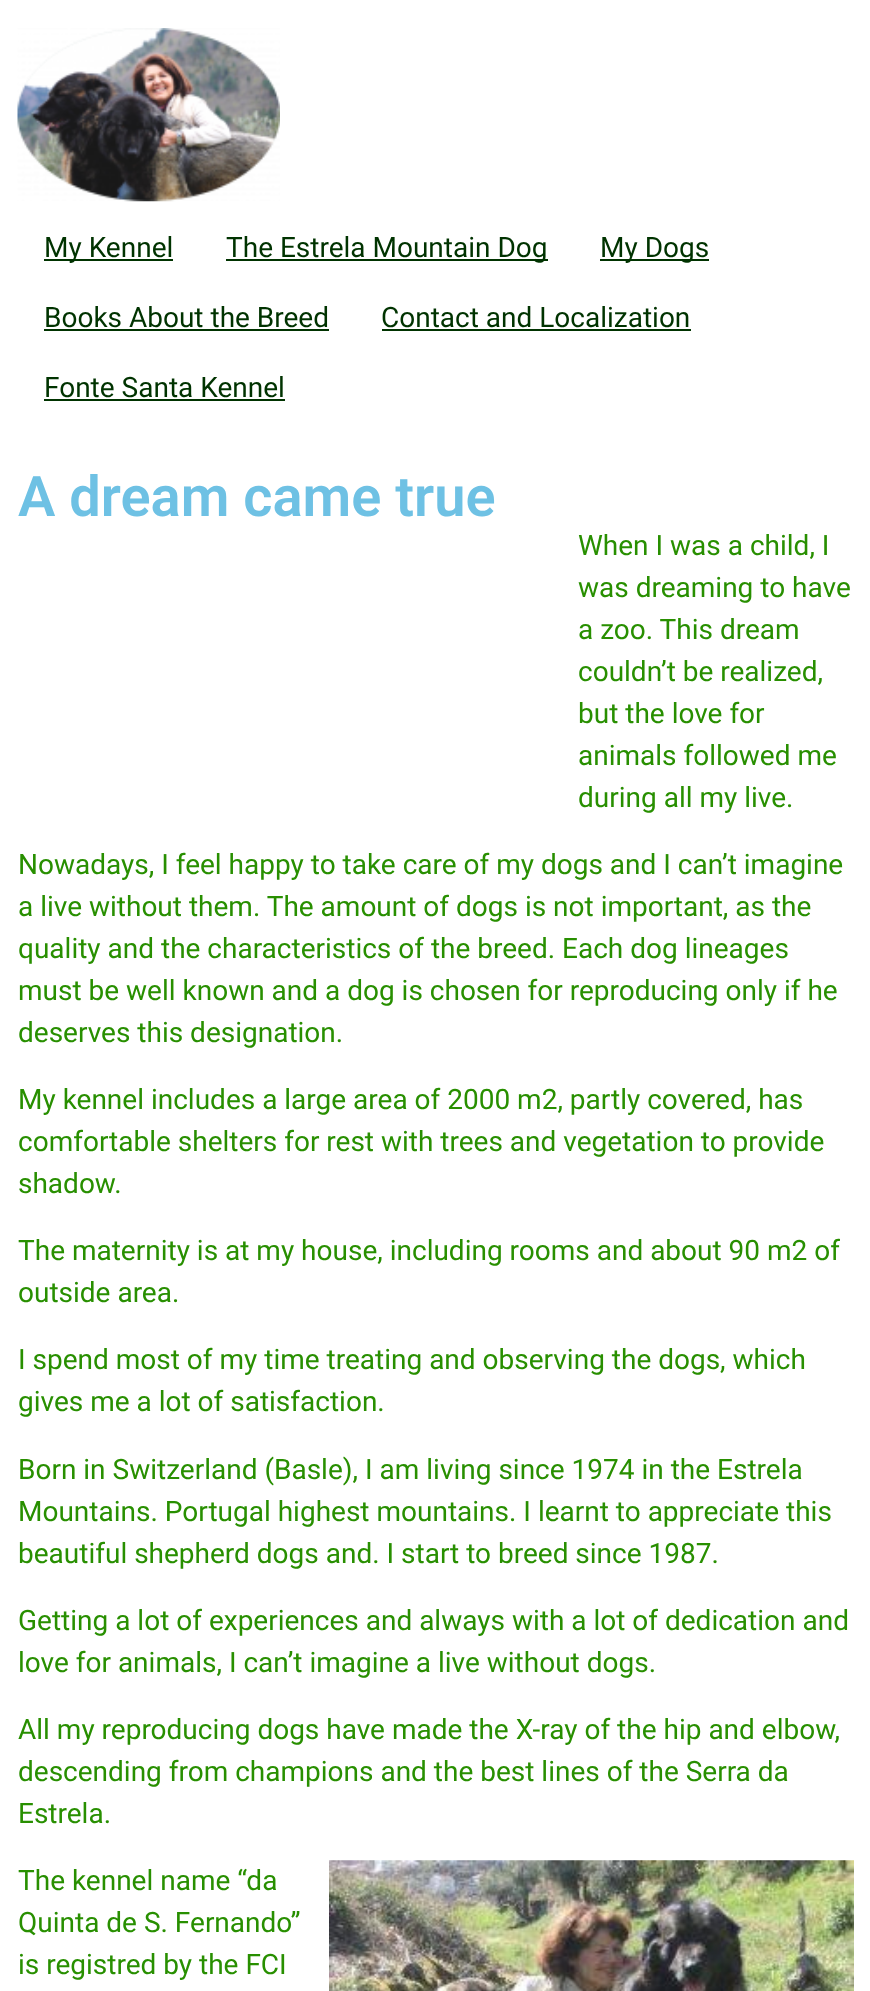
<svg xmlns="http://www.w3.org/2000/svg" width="870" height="1991">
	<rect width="100%" height="100%" fill="#FFFFFF" />
	<image x="17" y="28" width="263" height="174" href="assets/img1.png" />
	<rect x="44" y="259" width="129" height="2" fill="#003300" />
	<text x="44" y="257" font-family="Roboto" font-size="28" fill="#003300">My Kennel</text>
	<rect x="226" y="259" width="322" height="2" fill="#003300" />
	<text x="226" y="257" font-family="Roboto" font-size="28" fill="#003300">The Estrela Mountain Dog</text>
	<rect x="600" y="259" width="109" height="2" fill="#003300" />
	<g font-family="Roboto" font-size="28" fill="#003300">
		<text x="600" y="257">My Dogs</text>
		<text x="44" y="327">Books About the Breed</text>
	</g>
	<rect x="44" y="329" width="285" height="2" fill="#003300" />
	<text x="381" y="327" font-family="Roboto" font-size="28" fill="#003300">Contact and Localization</text>
	<rect x="382" y="329" width="309" height="2" fill="#003300" />
	<text x="44" y="397" font-family="Roboto" font-size="28" fill="#003300">Fonte Santa Kennel</text>
	<rect x="44" y="399" width="241" height="2" fill="#003300" />
	<text x="18" y="516" font-family="Roboto" font-size="56" font-weight="600" fill="#6EC1E4">A dream came true</text>
	<g font-family="Roboto" font-size="28" fill="#288F00">
		<text x="578" y="555">When I was a child, I</text>
		<text x="578" y="597">was dreaming to have</text>
		<text x="578" y="639">a zoo. This dream</text>
		<text x="578" y="681">couldn’t be realized,</text>
		<text x="578" y="723">but the love for</text>
		<text x="578" y="765">animals followed me</text>
		<text x="578" y="807">during all my live.</text>
		<text x="18" y="874">Nowadays, I feel happy to take care of my dogs and I can’t imagine</text>
		<text x="18" y="916">a live without them. The amount of dogs is not important, as the</text>
		<text x="18" y="958">quality and the characteristics of the breed. Each dog lineages</text>
		<text x="18" y="1000">must be well known and a dog is chosen for reproducing only if he</text>
		<text x="18" y="1042">deserves this designation.</text>
		<text x="18" y="1109">My kennel includes a large area of 2000 m2, partly covered, has</text>
		<text x="18" y="1151">comfortable shelters for rest with trees and vegetation to provide</text>
		<text x="18" y="1193">shadow.</text>
		<text x="18" y="1260">The maternity is at my house, including rooms and about 90 m2 of</text>
		<text x="18" y="1302">outside area.</text>
		<text x="18" y="1369">I spend most of my time treating and observing the dogs, which</text>
		<text x="18" y="1411">gives me a lot of satisfaction.</text>
		<text x="18" y="1479">Born in Switzerland (Basle), I am living since 1974 in the Estrela</text>
		<text x="18" y="1521">Mountains. Portugal highest mountains. I learnt to appreciate this</text>
		<text x="18" y="1563">beautiful shepherd dogs and. I start to breed since 1987.</text>
		<text x="18" y="1630">Getting a lot of experiences and always with a lot of dedication and</text>
		<text x="18" y="1672">love for animals, I can’t imagine a live without dogs.</text>
		<text x="18" y="1739">All my reproducing dogs have made the X-ray of the hip and elbow,</text>
		<text x="18" y="1781">descending from champions and the best lines of the Serra da</text>
		<text x="18" y="1823">Estrela.</text>
		<text x="18" y="1890">The kennel name “da</text>
	</g>
	<image x="329" y="1860" width="525" height="131" href="assets/img2.png" />
	<g font-family="Roboto" font-size="28" fill="#288F00">
		<text x="18" y="1932">Quinta de S. Fernando”</text>
		<text x="18" y="1974">is registred by the FCI</text>
	</g>
</svg>
